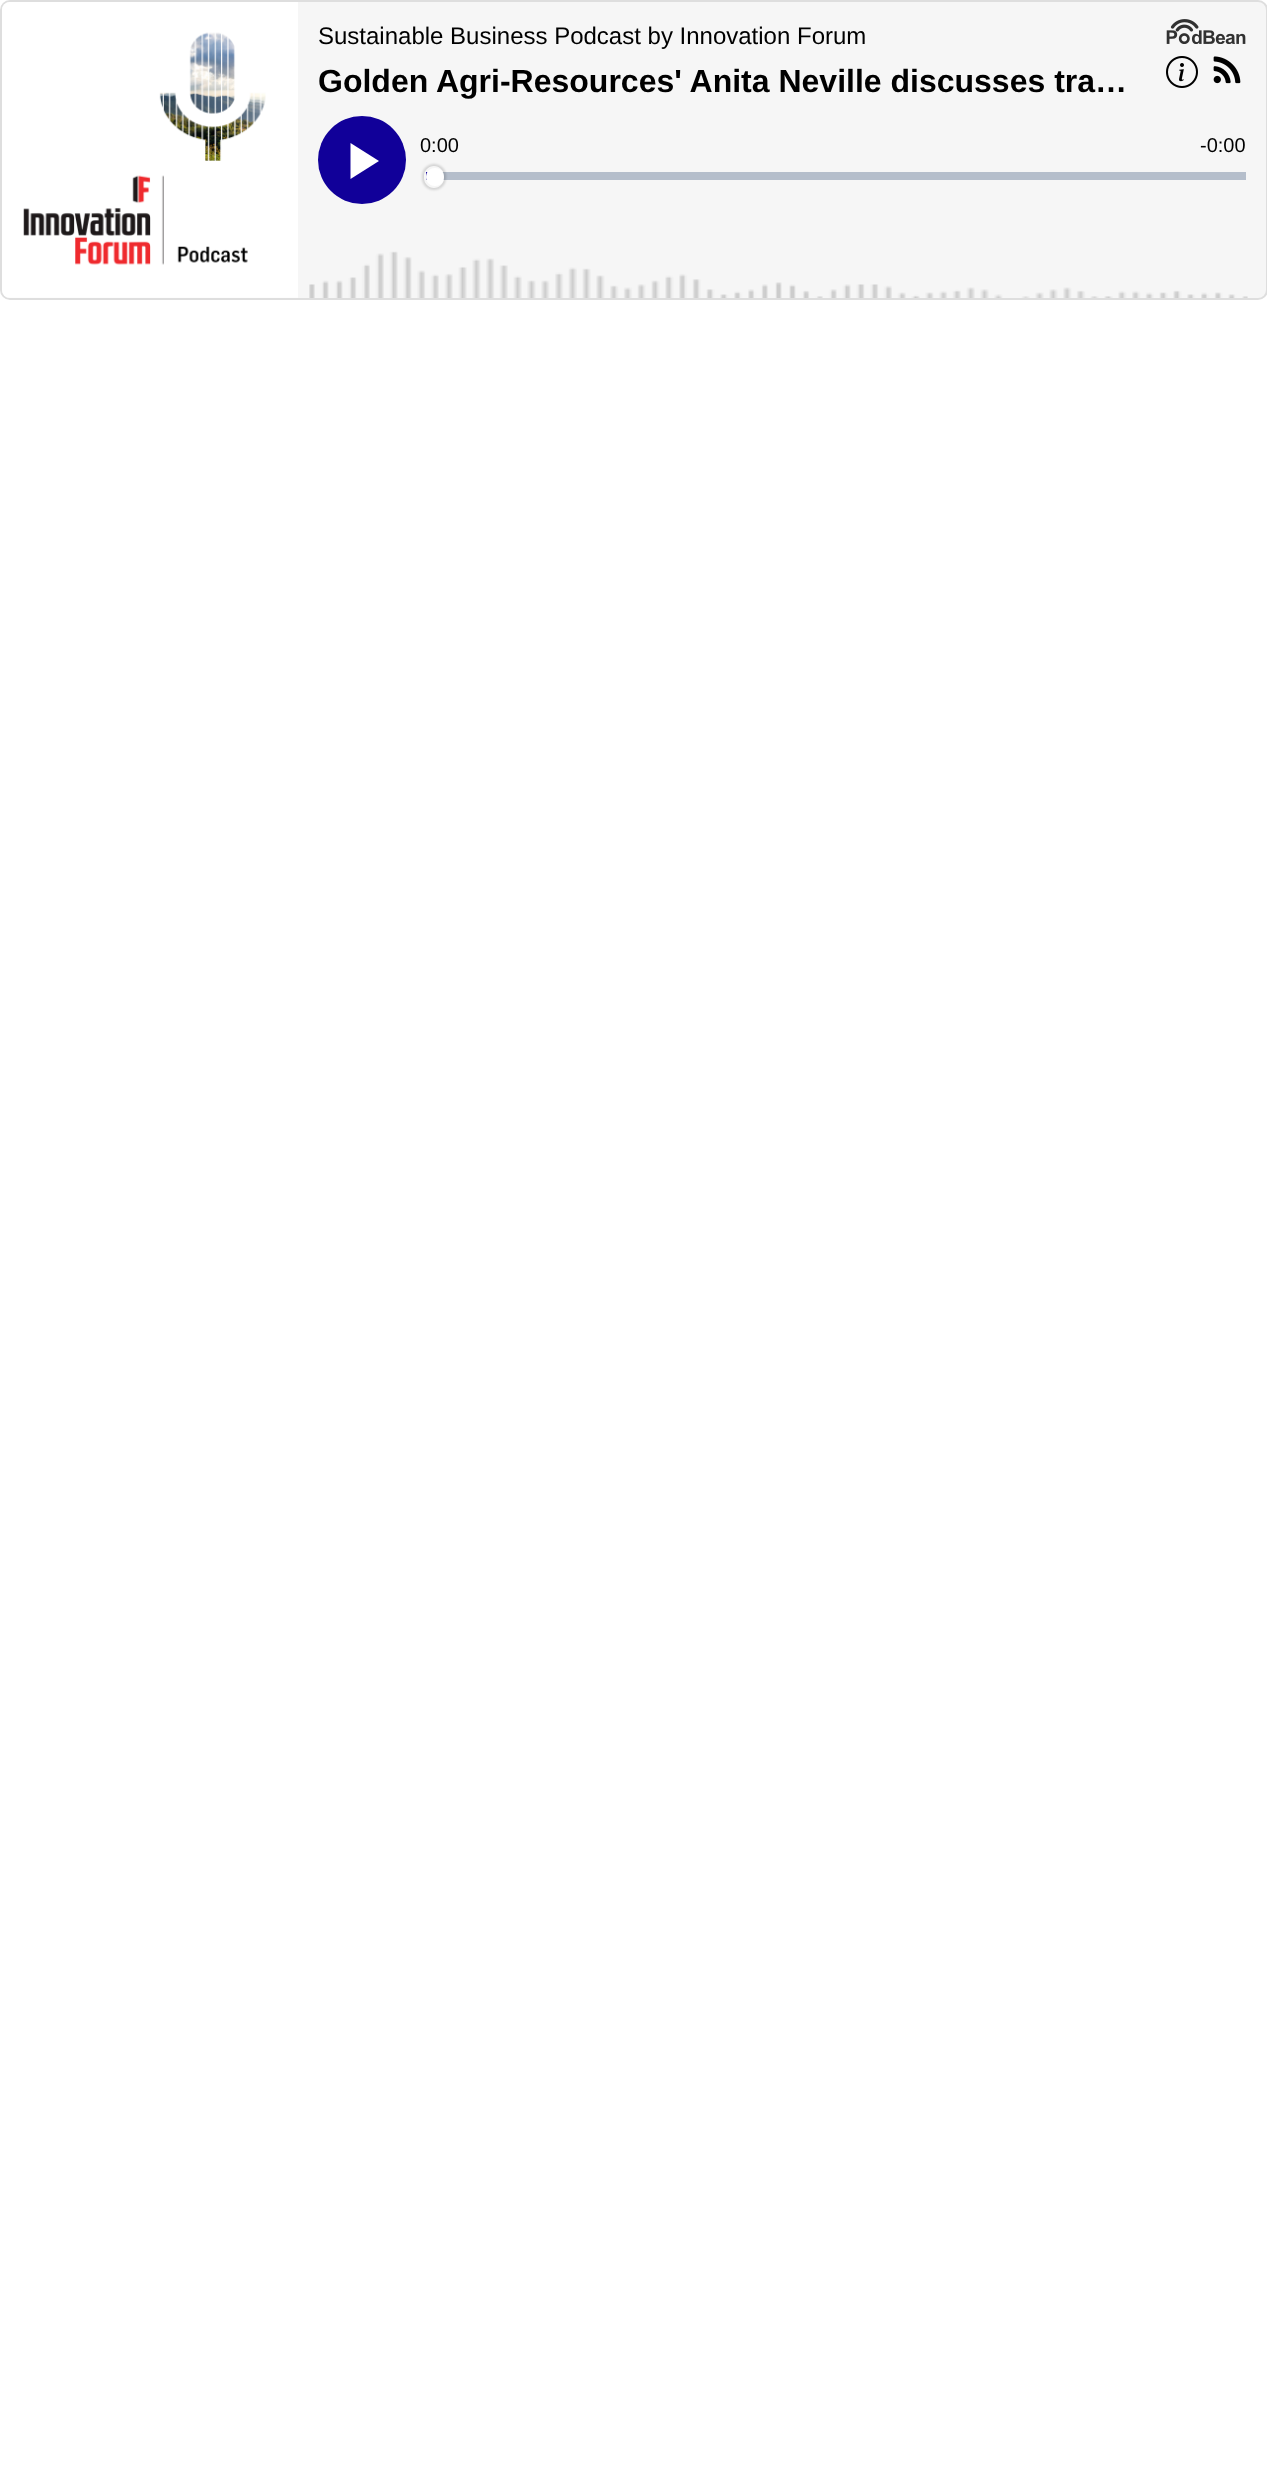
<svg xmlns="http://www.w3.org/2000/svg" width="1267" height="2491">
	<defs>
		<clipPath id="clip1"><path d="M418 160H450V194H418ZM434 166C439.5 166 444 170.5 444 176V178C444 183.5 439.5 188 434 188C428.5 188 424 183.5 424 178V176C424 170.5 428.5 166 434 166Z" clip-rule="evenodd" /></clipPath>
	</defs>
	<rect width="100%" height="100%" fill="#FFFFFF" />
	<rect x="1" y="1" width="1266" height="298" rx="9" fill="#F6F6F6" stroke="#DEDEDE" stroke-width="2" />
	<image x="2" y="2" width="296" height="296" href="assets/img1.png" />
	<text x="318" y="44" font-family="Liberation Sans" font-size="24" fill="#000000">Sustainable Business Podcast by Innovation Forum</text>
	<image x="1166" y="19" width="80" height="25" href="assets/img2.png" />
	<text x="318" y="92" font-family="Liberation Sans" font-size="32" font-weight="700" fill="#000000">Golden Agri-Resources' Anita Neville discusses tra…</text>
	<image x="1166" y="56" width="32" height="32" href="assets/img3.png" />
	<image x="1213" y="56" width="28" height="28" href="assets/img4.png" />
	<circle cx="362" cy="160" r="44" fill="#110099" />
	<path d="M350.5 143V179L379 161Z" fill="#FFFFFF" />
	<g font-family="Liberation Sans" font-size="20" fill="#000000">
		<text x="420" y="152">0:00</text>
		<text x="1200" y="152">-0:00</text>
	</g>
	<rect x="442" y="172" width="804" height="8" fill="#B5BECB" />
	<rect x="426" y="172" width="8" height="8" fill="#110099" />
	<g clip-path="url(#clip1)">
		<rect x="422" y="164" width="24" height="26" rx="12" fill="#000000" fill-opacity="0.14" filter="blur(1px)" />
	</g>
	<path d="M426 177C426 189 444 189 444 177C444 165 426 165 426 177Z" fill="#FFFFFF" />
	<image x="309" y="251" width="939" height="47" href="assets/img5.png" />
</svg>
